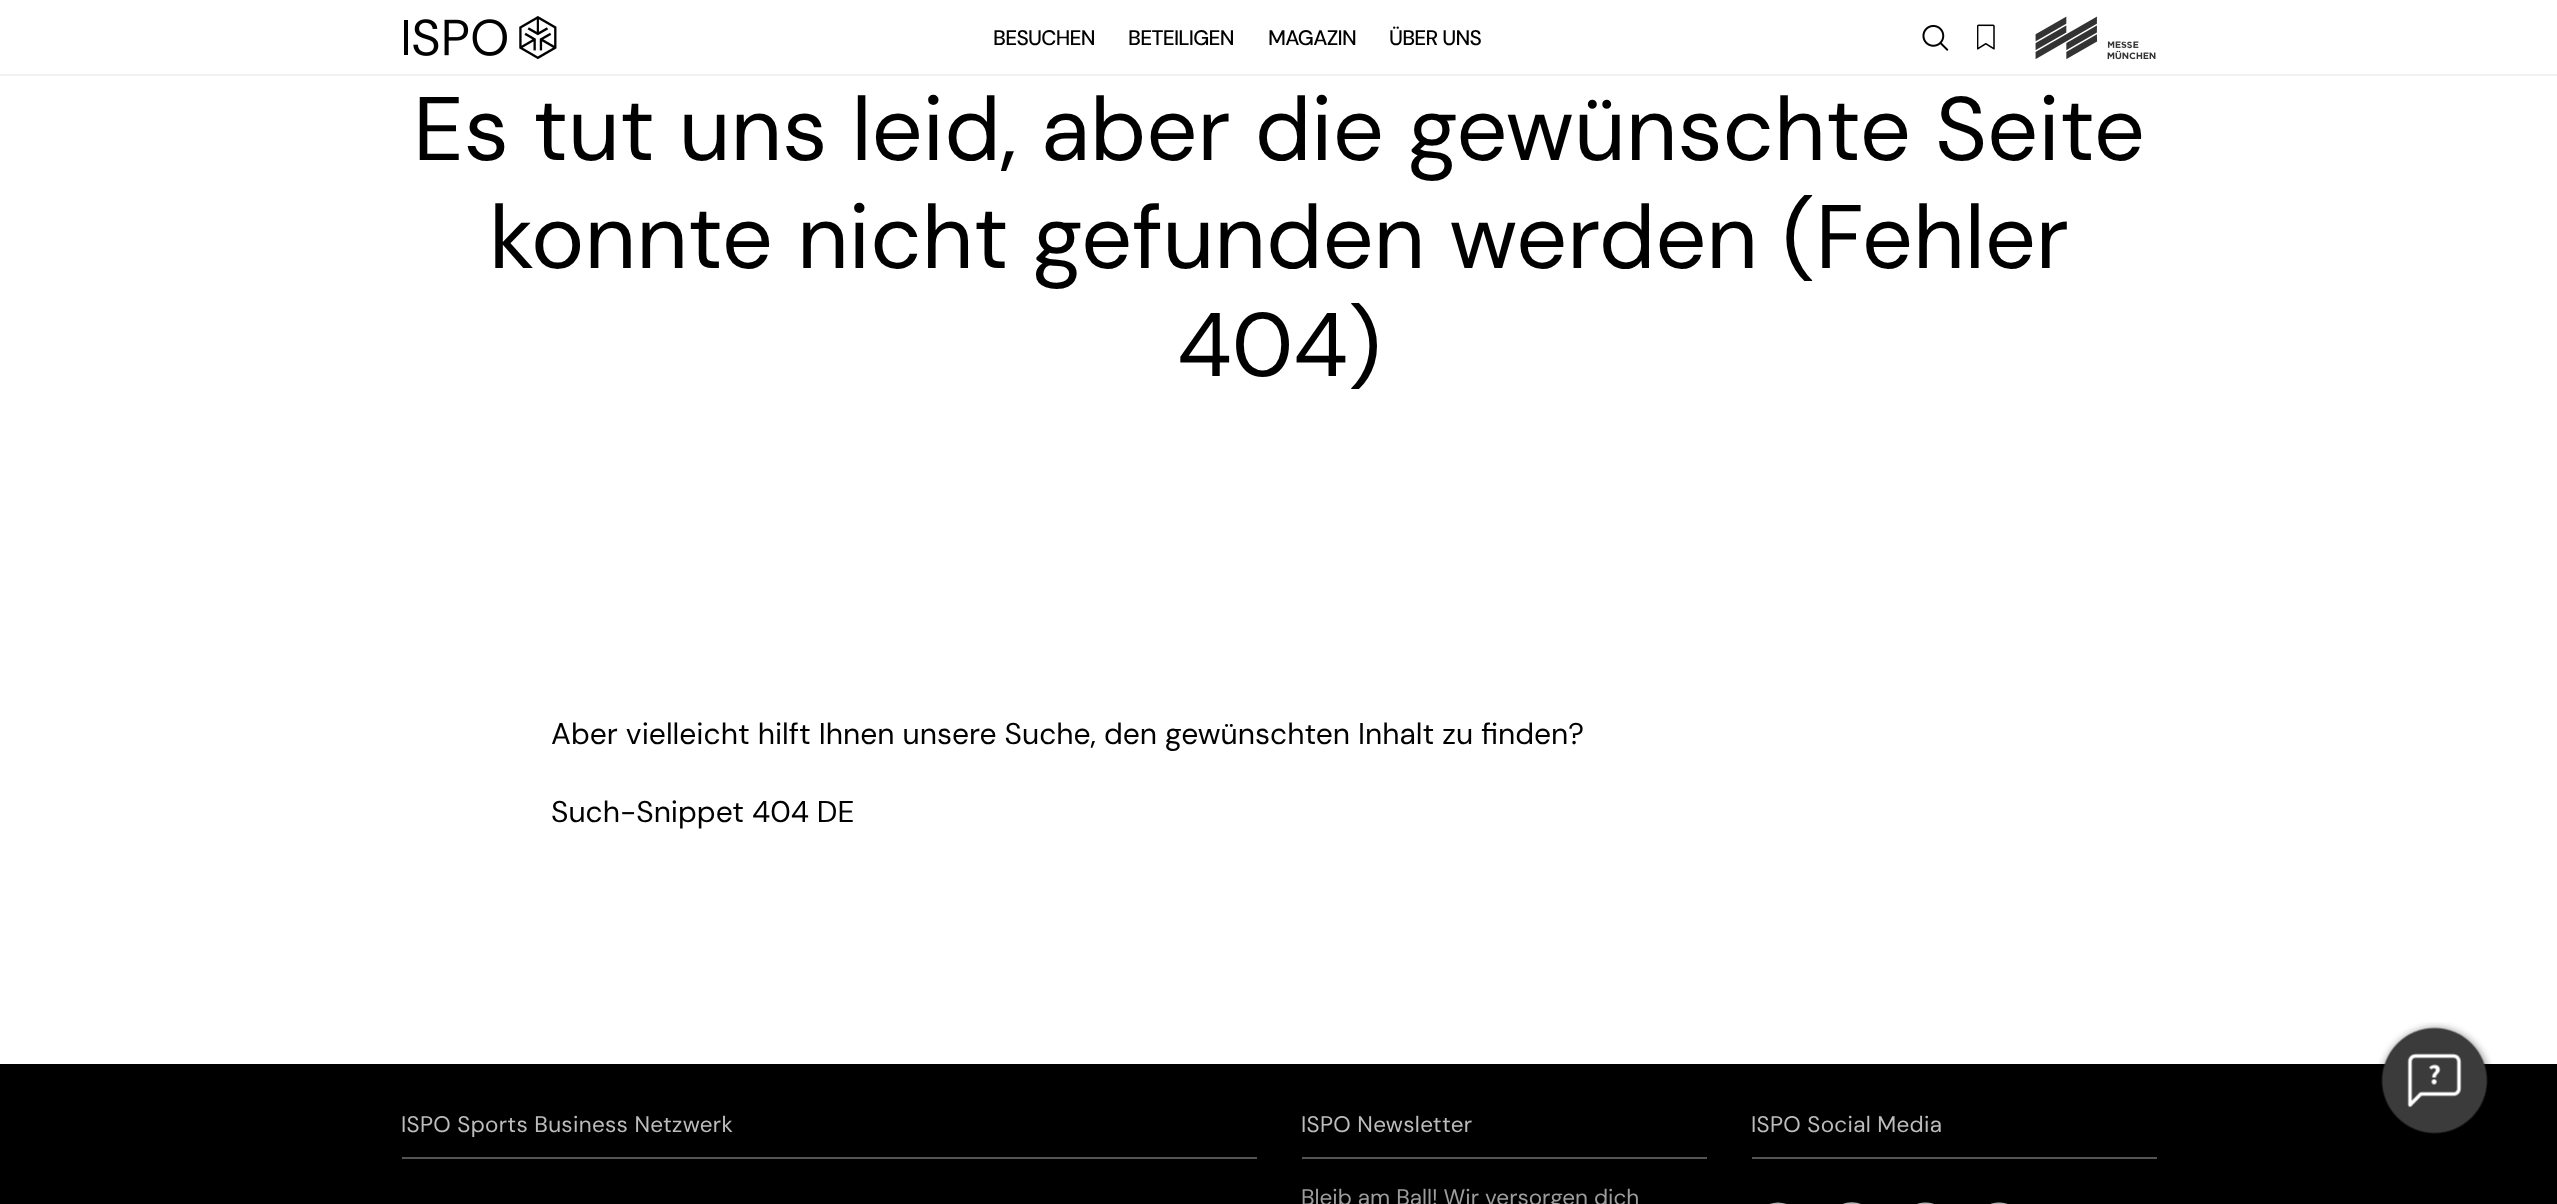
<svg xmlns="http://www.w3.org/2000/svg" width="2557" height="1204">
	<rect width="100%" height="100%" fill="#FFFFFF" />
	<image x="404" y="16" width="153" height="44" href="assets/img1.png" />
	<g font-family="DM Sans" font-size="21" font-weight="500" letter-spacing="-0.75" fill="#000000">
		<text x="993" y="45">BESUCHEN</text>
		<text x="1128" y="45">BETEILIGEN</text>
		<text x="1268" y="45">MAGAZIN</text>
		<text x="1389" y="45">ÜBER UNS</text>
	</g>
	<image x="1922" y="24" width="27" height="27" href="assets/img2.png" />
	<image x="1977" y="24" width="18" height="26" href="assets/img3.png" />
	<image x="2035" y="16" width="121" height="44" href="assets/img4.png" />
	<rect x="0" y="74" width="2557" height="2" fill="#F1F1F1" />
	<g font-family="DM Sans" font-size="90" fill="#000000">
		<text x="413" y="160">Es tut uns leid, aber die gewünschte Seite</text>
		<text x="489" y="268">konnte nicht gefunden werden (Fehler</text>
		<text x="1177" y="376">404)</text>
	</g>
	<g font-family="DM Sans" font-size="30" fill="#000000">
		<text x="551" y="744">Aber vielleicht hilft Ihnen unsere Suche, den gewünschten Inhalt zu finden?</text>
		<text x="551" y="822">Such-Snippet 404 DE</text>
	</g>
	<rect x="0" y="1064" width="2557" height="140" fill="#000000" />
	<rect x="402" y="1157" width="855" height="2" fill="#545454" />
	<text x="401" y="1132" font-family="DM Sans" font-size="22.5" letter-spacing="0.3" fill="#BCBCBC">ISPO Sports Business Netzwerk</text>
	<rect x="1302" y="1157" width="405" height="2" fill="#545454" />
	<text x="1301" y="1132" font-family="DM Sans" font-size="22.5" letter-spacing="0.3" fill="#BCBCBC">ISPO Newsletter</text>
	<text x="1301" y="1205" font-family="DM Sans" font-size="22.5" fill="#9D9D9D">Bleib am Ball! Wir versorgen dich</text>
	<rect x="1752" y="1157" width="405" height="2" fill="#545454" />
	<text x="1751" y="1132" font-family="DM Sans" font-size="22.5" letter-spacing="0.3" fill="#BCBCBC">ISPO Social Media</text>
	<circle cx="1778" cy="1228.5" r="26" fill="#B1B1B1" />
	<image x="1842" y="1202" width="19" height="2" href="assets/img5.png" />
	<image x="1917" y="1202" width="17" height="2" href="assets/img6.png" />
	<image x="1990" y="1202" width="18" height="2" href="assets/img7.png" />
	<image x="2378" y="1022" width="114" height="112" href="assets/img8.png" />
</svg>
